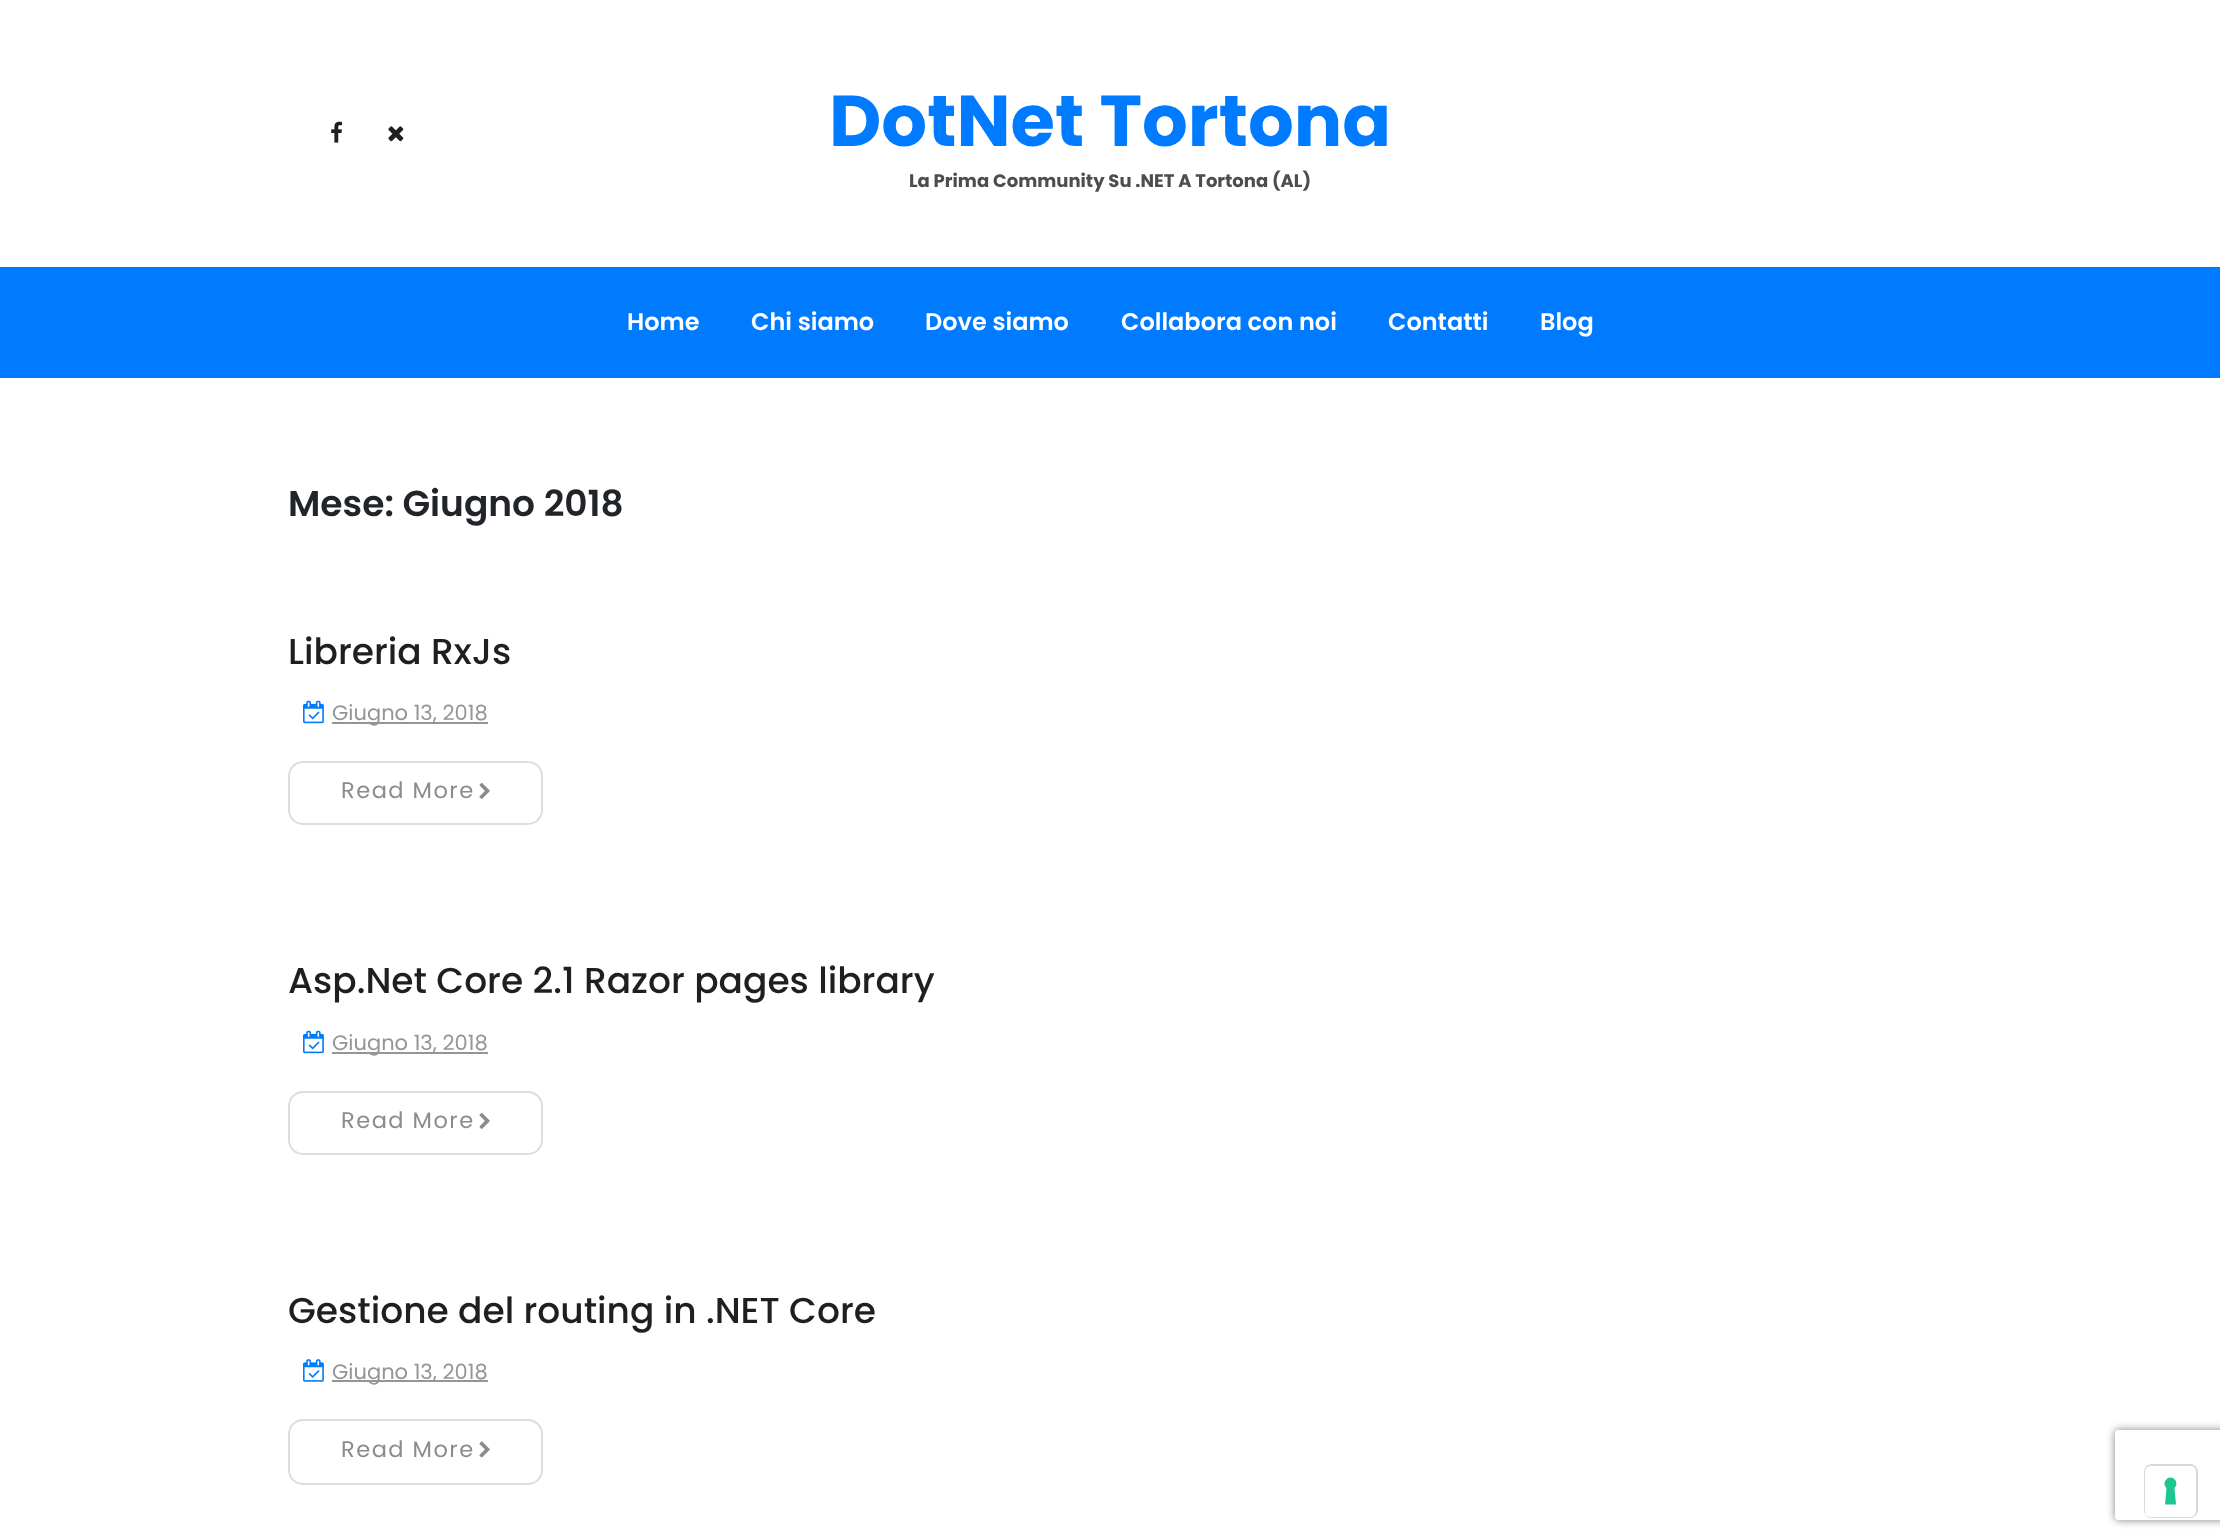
<svg xmlns="http://www.w3.org/2000/svg" width="2220" height="1540">
	<defs>
		<clipPath id="clip1"><path d="M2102 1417H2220V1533H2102ZM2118 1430H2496C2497.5 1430 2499 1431.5 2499 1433V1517C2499 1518.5 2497.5 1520 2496 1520H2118C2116.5 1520 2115 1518.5 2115 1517V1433C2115 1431.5 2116.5 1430 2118 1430Z" clip-rule="evenodd" /></clipPath>
	</defs>
	<rect width="100%" height="100%" fill="#FFFFFF" />
	<image x="331" y="121" width="12" height="22" href="assets/img1.png" />
	<image x="388" y="126" width="16" height="16" href="assets/img2.png" />
	<text x="829" y="146" font-family="Poppins" font-size="72" font-weight="700" fill="#007BFF">DotNet Tortona</text>
	<text x="909" y="187" font-family="Poppins" font-size="18" font-weight="700" fill="#4D4D4D">La Prima Community Su .NET A Tortona (AL)</text>
	<rect x="0" y="267" width="2220" height="111" fill="#007BFF" />
	<g font-family="Poppins" font-size="24" font-weight="600" fill="#FFFFFF">
		<text x="627" y="330">Home</text>
		<text x="751" y="330">Chi siamo</text>
		<text x="925" y="330">Dove siamo</text>
		<text x="1121" y="330">Collabora con noi</text>
		<text x="1388" y="330">Contatti</text>
		<text x="1540" y="330">Blog</text>
	</g>
	<text x="288" y="516" font-family="Poppins" font-size="36" font-weight="600" fill="#212529">Mese: Giugno 2018</text>
	<text x="288" y="664" font-family="Poppins" font-size="36" font-weight="500" fill="#1F1F1F">Libreria RxJs</text>
	<image x="303" y="700" width="21" height="24" href="assets/img3.png" />
	<rect x="332" y="722" width="156" height="2" fill="#959595" />
	<text x="332" y="720" font-family="Poppins" font-size="21" fill="#959595">Giugno 13, 2018</text>
	<rect x="289" y="762" width="253" height="62" rx="14" fill="none" stroke="#DDDDDD" stroke-width="2" />
	<text x="341" y="798" font-family="Poppins" font-size="22.5" letter-spacing="1.5" fill="#8B8B8B">Read More</text>
	<image x="479" y="782" width="11" height="17" href="assets/img4.png" />
	<text x="288" y="993" font-family="Poppins" font-size="36" font-weight="500" fill="#1F1F1F">Asp.Net Core 2.1 Razor pages library</text>
	<image x="303" y="1030" width="21" height="24" href="assets/img3.png" />
	<rect x="332" y="1052" width="156" height="2" fill="#959595" />
	<text x="332" y="1050" font-family="Poppins" font-size="21" fill="#959595">Giugno 13, 2018</text>
	<rect x="289" y="1092" width="253" height="62" rx="14" fill="none" stroke="#DDDDDD" stroke-width="2" />
	<text x="341" y="1128" font-family="Poppins" font-size="22.5" letter-spacing="1.5" fill="#8B8B8B">Read More</text>
	<image x="479" y="1112" width="11" height="17" href="assets/img4.png" />
	<text x="288" y="1323" font-family="Poppins" font-size="36" font-weight="500" fill="#1F1F1F">Gestione del routing in .NET Core</text>
	<image x="303" y="1359" width="21" height="23" href="assets/img5.png" />
	<rect x="332" y="1380" width="156" height="2" fill="#959595" />
	<text x="332" y="1379" font-family="Poppins" font-size="21" fill="#959595">Giugno 13, 2018</text>
	<rect x="289" y="1420" width="253" height="64" rx="14" fill="none" stroke="#DDDDDD" stroke-width="2" />
	<text x="341" y="1457" font-family="Poppins" font-size="22.5" letter-spacing="1.5" fill="#8B8B8B">Read More</text>
	<image x="479" y="1441" width="11" height="17" href="assets/img6.png" />
	<g clip-path="url(#clip1)">
		<rect x="2115" y="1430" width="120" height="90" rx="3" fill="#808080" filter="blur(4px)" />
	</g>
	<rect x="2145" y="1465" width="52" height="52" rx="7" fill="none" stroke="#D9D9D9" stroke-width="2" />
	<rect x="2145" y="1466" width="51" height="51" rx="6" fill="#FFFFFF" />
	<path d="M2170.5 1477.5C2176 1477.5 2178.5 1484.5 2174.5 1488L2176 1504.5H2165L2166.5 1488C2162.5 1484.5 2165 1477.5 2170.5 1477.5Z" fill="#1CC691" fill-rule="evenodd" />
</svg>
